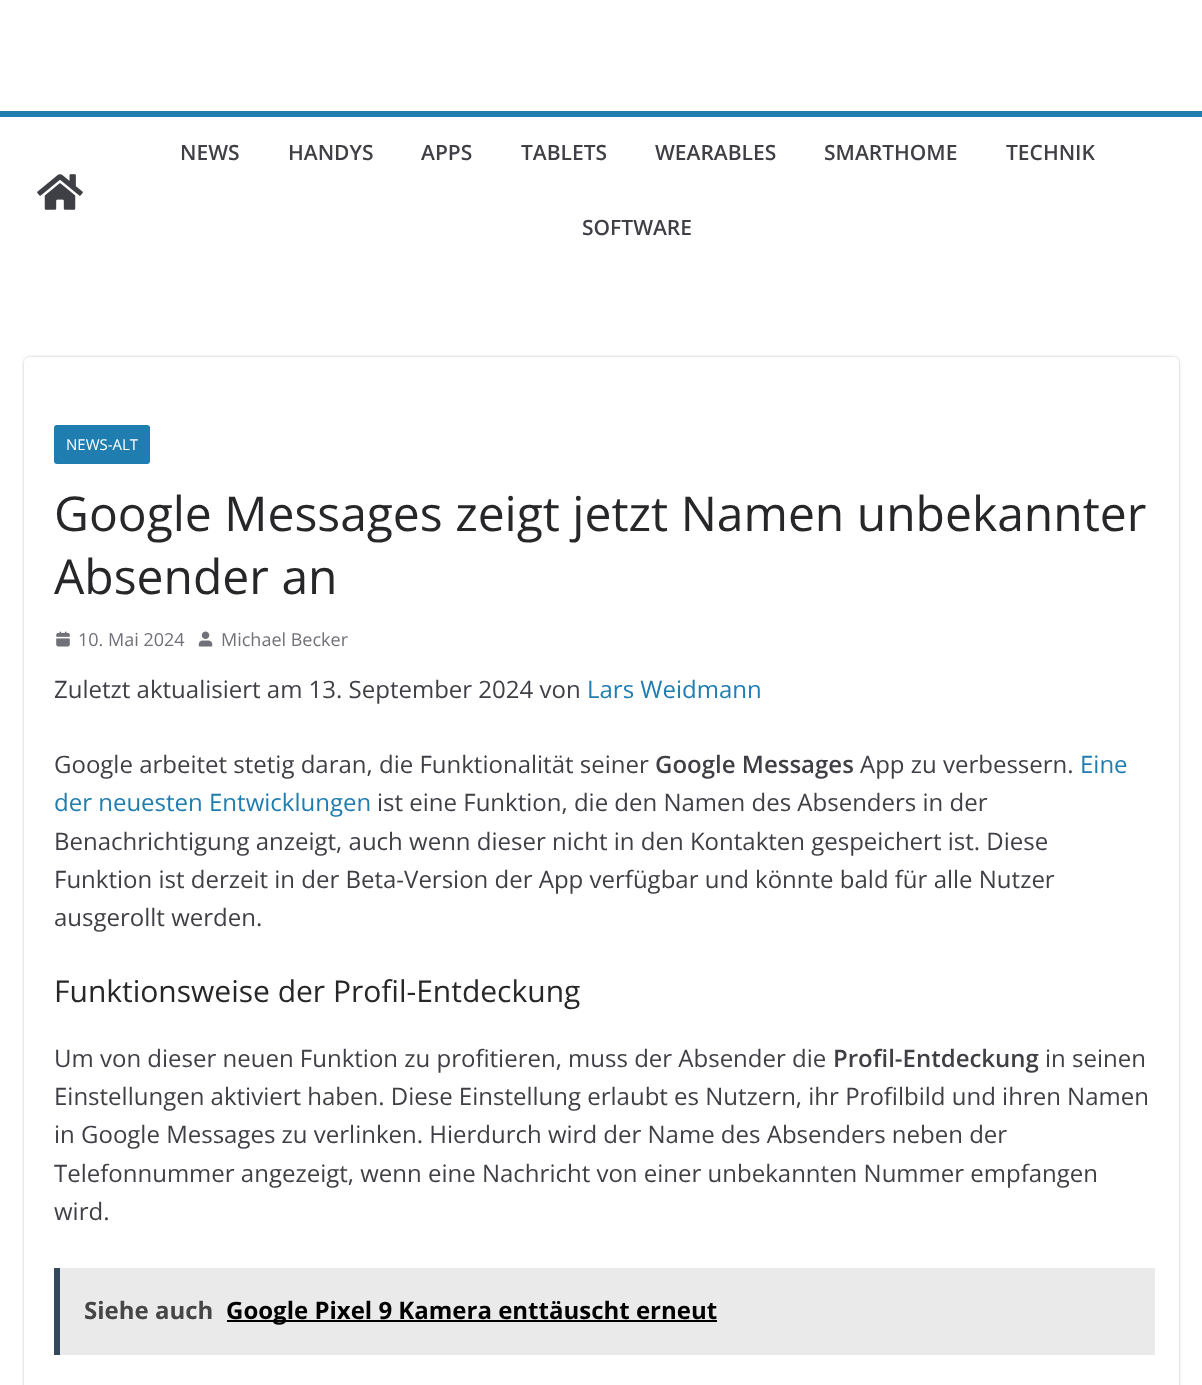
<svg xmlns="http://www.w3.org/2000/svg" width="1202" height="1385">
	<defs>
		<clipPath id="clip1"><path d="M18 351H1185V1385H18ZM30 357H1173C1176.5 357 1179 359.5 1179 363V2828C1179 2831.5 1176.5 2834 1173 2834H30C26.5 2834 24 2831.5 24 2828V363C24 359.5 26.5 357 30 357Z" clip-rule="evenodd" /></clipPath>
	</defs>
	<rect width="100%" height="100%" fill="#FFFFFF" />
	<rect x="0" y="111" width="1202" height="6" fill="#207DAF" />
	<image x="37" y="174" width="46" height="36" href="assets/img1.png" />
	<g font-family="Open Sans" font-size="21" font-weight="600" fill="#3F3F46">
		<text x="180" y="160">NEWS</text>
		<text x="288" y="160">HANDYS</text>
		<text x="421" y="160">APPS</text>
		<text x="521" y="160">TABLETS</text>
		<text x="655" y="160">WEARABLES</text>
		<text x="824" y="160">SMARTHOME</text>
		<text x="1006" y="160">TECHNIK</text>
		<text x="582" y="235">SOFTWARE</text>
	</g>
	<g clip-path="url(#clip1)">
		<rect x="24" y="357" width="1155" height="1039" rx="6" fill="#000000" fill-opacity="0.24" filter="blur(1.5px)" />
	</g>
	<rect x="54" y="425" width="96" height="39" rx="3" fill="#207DAF" />
	<text x="66" y="450" font-family="Open Sans" font-size="15" fill="#FFFFFF">NEWS-ALT</text>
	<g font-family="'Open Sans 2'" font-size="48" fill="#27272A">
		<text x="54" y="531">Google Messages zeigt jetzt Namen unbekannter</text>
		<text x="54" y="594">Absender an</text>
	</g>
	<image x="56" y="631" width="14" height="16" href="assets/img2.png" />
	<text x="78" y="646" font-family="Open Sans" font-size="18" fill="#71717A">10. Mai 2024</text>
	<image x="198" y="631" width="15" height="16" href="assets/img3.png" />
	<text x="221" y="646" font-family="Open Sans" font-size="18" fill="#71717A">Michael Becker</text>
	<text x="54" y="698" font-family="Open Sans" font-size="24" fill="#3F3F46">Zuletzt aktualisiert am 13. September 2024 von</text>
	<text x="587" y="698" font-family="Open Sans" font-size="24" fill="#207DAF">Lars Weidmann</text>
	<text x="54" y="773" font-family="Open Sans" font-size="24" fill="#3F3F46">Google arbeitet stetig daran, die Funktionalität seiner</text>
	<text x="655" y="773" font-family="Open Sans" font-size="24" font-weight="600" fill="#3F3F46">Google Messages</text>
	<text x="860" y="773" font-family="Open Sans" font-size="24" fill="#3F3F46">App zu verbessern.</text>
	<g font-family="Open Sans" font-size="24" fill="#207DAF">
		<text x="1080" y="773">Eine</text>
		<text x="54" y="811">der neuesten Entwicklungen</text>
	</g>
	<g font-family="Open Sans" font-size="24" fill="#3F3F46">
		<text x="377" y="811">ist eine Funktion, die den Namen des Absenders in der</text>
		<text x="54" y="850">Benachrichtigung anzeigt, auch wenn dieser nicht in den Kontakten gespeichert ist. Diese</text>
		<text x="54" y="888">Funktion ist derzeit in der Beta-Version der App verfügbar und könnte bald für alle Nutzer</text>
		<text x="54" y="926">ausgerollt werden.</text>
	</g>
	<text x="54" y="1002" font-family="'Open Sans 2'" font-size="30" fill="#27272A">Funktionsweise der Profil-Entdeckung</text>
	<text x="54" y="1067" font-family="Open Sans" font-size="24" fill="#3F3F46">Um von dieser neuen Funktion zu profitieren, muss der Absender die</text>
	<text x="833" y="1067" font-family="Open Sans" font-size="24" font-weight="600" fill="#3F3F46">Profil-Entdeckung</text>
	<g font-family="Open Sans" font-size="24" fill="#3F3F46">
		<text x="1045" y="1067">in seinen</text>
		<text x="54" y="1105">Einstellungen aktiviert haben. Diese Einstellung erlaubt es Nutzern, ihr Profilbild und ihren Namen</text>
		<text x="54" y="1143">in Google Messages zu verlinken. Hierdurch wird der Name des Absenders neben der</text>
		<text x="54" y="1182">Telefonnummer angezeigt, wenn eine Nachricht von einer unbekannten Nummer empfangen</text>
		<text x="54" y="1220">wird.</text>
	</g>
	<rect x="60" y="1268" width="1095" height="87" fill="#EAEAEA" />
	<rect x="54" y="1268" width="6" height="87" fill="#34495E" />
	<text x="84" y="1319" font-family="Open Sans" font-size="24" font-weight="700" fill="#464646">Siehe auch</text>
	<rect x="227" y="1320" width="490" height="2" fill="#000000" />
	<text x="226" y="1319" font-family="Open Sans" font-size="24" font-weight="700" fill="#000000">Google Pixel 9 Kamera enttäuscht erneut</text>
</svg>
